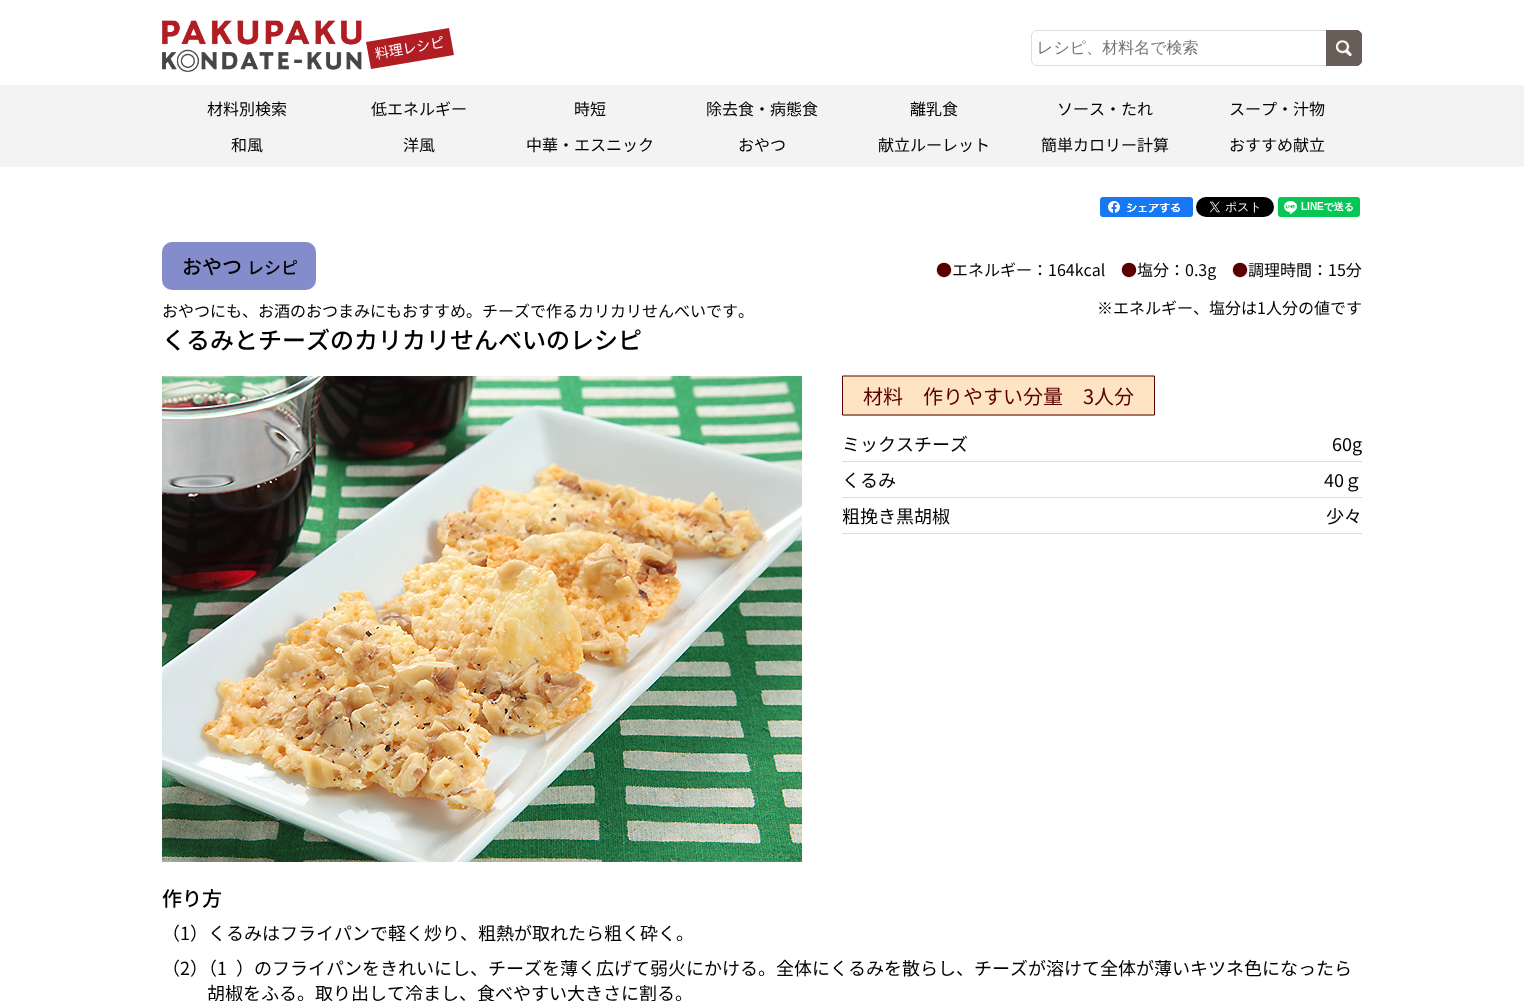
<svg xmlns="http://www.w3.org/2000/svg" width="1524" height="1001">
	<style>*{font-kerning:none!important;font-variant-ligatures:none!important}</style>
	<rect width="100%" height="100%" fill="#FFFFFF" />
	<image x="162" y="20" width="200" height="52" href="assets/img1.png" />
	<path d="M366 42L449 28L454 55L371 69Z" fill="#B01D23" />
	<text x="376" y="59" transform="rotate(-10 376 59)" font-family="Noto Sans JP" font-size="14" fill="#FFFFFF">料理レシピ</text>
	<path d="M1037 30.5H1330.5V65.5H1037C1034 65.5 1031.5 63 1031.5 60V36C1031.5 33 1034 30.5 1037 30.5Z" fill="none" stroke="#DDDDDD" />
	<text x="1037" y="53" font-family="WenQuanYi Zen Hei" font-size="16" font-weight="500" fill="#757575">レシピ、材料名で検索</text>
	<path d="M1326 30H1356C1359.5 30 1362 32.5 1362 36V60C1362 63.5 1359.5 66 1356 66H1326Z" fill="#685D57" />
	<image x="1336" y="40" width="16" height="16" href="assets/img2.png" />
	<path d="M1326.5 30.5H1356C1359 30.5 1361.5 33 1361.5 36V60C1361.5 63 1359 65.5 1356 65.5H1326.5Z" fill="none" stroke="#685D57" />
	<rect x="0" y="85" width="1524" height="82" fill="#F3F3F3" />
	<g font-family="Noto Sans JP" font-size="16" fill="#000000">
		<text x="207" y="115">材料別検索</text>
		<text x="371" y="115">低エネルギー</text>
		<text x="574" y="115">時短</text>
		<text x="706" y="115">除去食・病態食</text>
		<text x="910" y="115">離乳食</text>
		<text x="1057" y="115">ソース・たれ</text>
		<text x="1229" y="115">スープ・汁物</text>
		<text x="231" y="151">和風</text>
		<text x="403" y="151">洋風</text>
		<text x="526" y="151">中華・エスニック</text>
		<text x="738" y="151">おやつ</text>
		<text x="878" y="151">献立ルーレット</text>
		<text x="1041" y="151">簡単カロリー計算</text>
		<text x="1229" y="151">おすすめ献立</text>
	</g>
	<image x="1100" y="197" width="93" height="20" href="assets/img3.png" />
	<image x="1196" y="197" width="78" height="20" href="assets/img4.png" />
	<image x="1278" y="197" width="82" height="20" href="assets/img5.png" />
	<rect x="162" y="242" width="154" height="48" rx="10" fill="#858CCC" />
	<text x="182" y="274" font-family="Noto Sans JP" font-size="20" font-weight="500" fill="#000000">おやつ</text>
	<text x="247" y="274" font-family="Noto Sans JP" font-size="17" font-weight="500" fill="#000000">レシピ</text>
	<text x="162" y="317" font-family="Noto Sans JP" font-size="16" fill="#000000">おやつにも、お酒のおつまみにもおすすめ。チーズで作るカリカリせんべいです。</text>
	<text x="162" y="349" font-family="Noto Sans JP" font-size="24" font-weight="500" fill="#000000">くるみとチーズのカリカリせんべいのレシピ</text>
	<text x="936" y="276" font-family="Noto Sans JP" font-size="16" fill="#590000">●</text>
	<text x="952" y="276" font-family="Noto Sans JP" font-size="16" fill="#000000">エネルギー：164kcal</text>
	<text x="1121" y="276" font-family="Noto Sans JP" font-size="16" fill="#590000">●</text>
	<text x="1137" y="276" font-family="Noto Sans JP" font-size="16" fill="#000000">塩分：0.3g</text>
	<text x="1232" y="276" font-family="Noto Sans JP" font-size="16" fill="#590000">●</text>
	<g font-family="Noto Sans JP" font-size="16" fill="#000000">
		<text x="1248" y="276">調理時間：15分</text>
		<text x="1097" y="314">※エネルギー、塩分は1人分の値です</text>
	</g>
	<image x="162" y="376" width="640" height="486" href="assets/img6.png" />
	<rect x="842" y="376" width="313" height="40" fill="#FFE4C4" />
	<path d="M842.5 376H1154.5V415H842.5Z" fill="none" stroke="#590000" />
	<text x="863" y="404" font-family="Noto Sans JP" font-size="20" fill="#590000">材料　作りやすい分量　3人分</text>
	<rect x="842" y="461" width="520" height="1" fill="#DDDDDD" />
	<g font-family="Noto Sans JP" font-size="18" fill="#000000">
		<text x="842" y="451">ミックスチーズ</text>
		<text x="1332" y="451">60g</text>
	</g>
	<rect x="842" y="497" width="520" height="1" fill="#DDDDDD" />
	<g font-family="Noto Sans JP" font-size="18" fill="#000000">
		<text x="842" y="487">くるみ</text>
		<text x="1324" y="487">40ｇ</text>
	</g>
	<rect x="842" y="533" width="520" height="1" fill="#DDDDDD" />
	<g font-family="Noto Sans JP" font-size="18" fill="#000000">
		<text x="842" y="523">粗挽き黒胡椒</text>
		<text x="1326" y="523">少々</text>
	</g>
	<text x="162" y="906" font-family="Noto Sans JP" font-size="20" font-weight="500" fill="#000000">作り方</text>
	<g font-family="Noto Sans JP" font-size="18" fill="#000000">
		<text x="162" y="940">（1）くるみはフライパンで軽く炒り、粗熱が取れたら粗く砕く。</text>
		<text x="162" y="975">（2）（1</text>
		<text x="236" y="975">）のフライパンをきれいにし、チーズを薄く広げて弱火にかける。全体にくるみを散らし、チーズが溶けて全体が薄いキツネ色になったら</text>
		<text x="207" y="1000">胡椒をふる。取り出して冷まし、食べやすい大きさに割る。</text>
	</g>
</svg>
